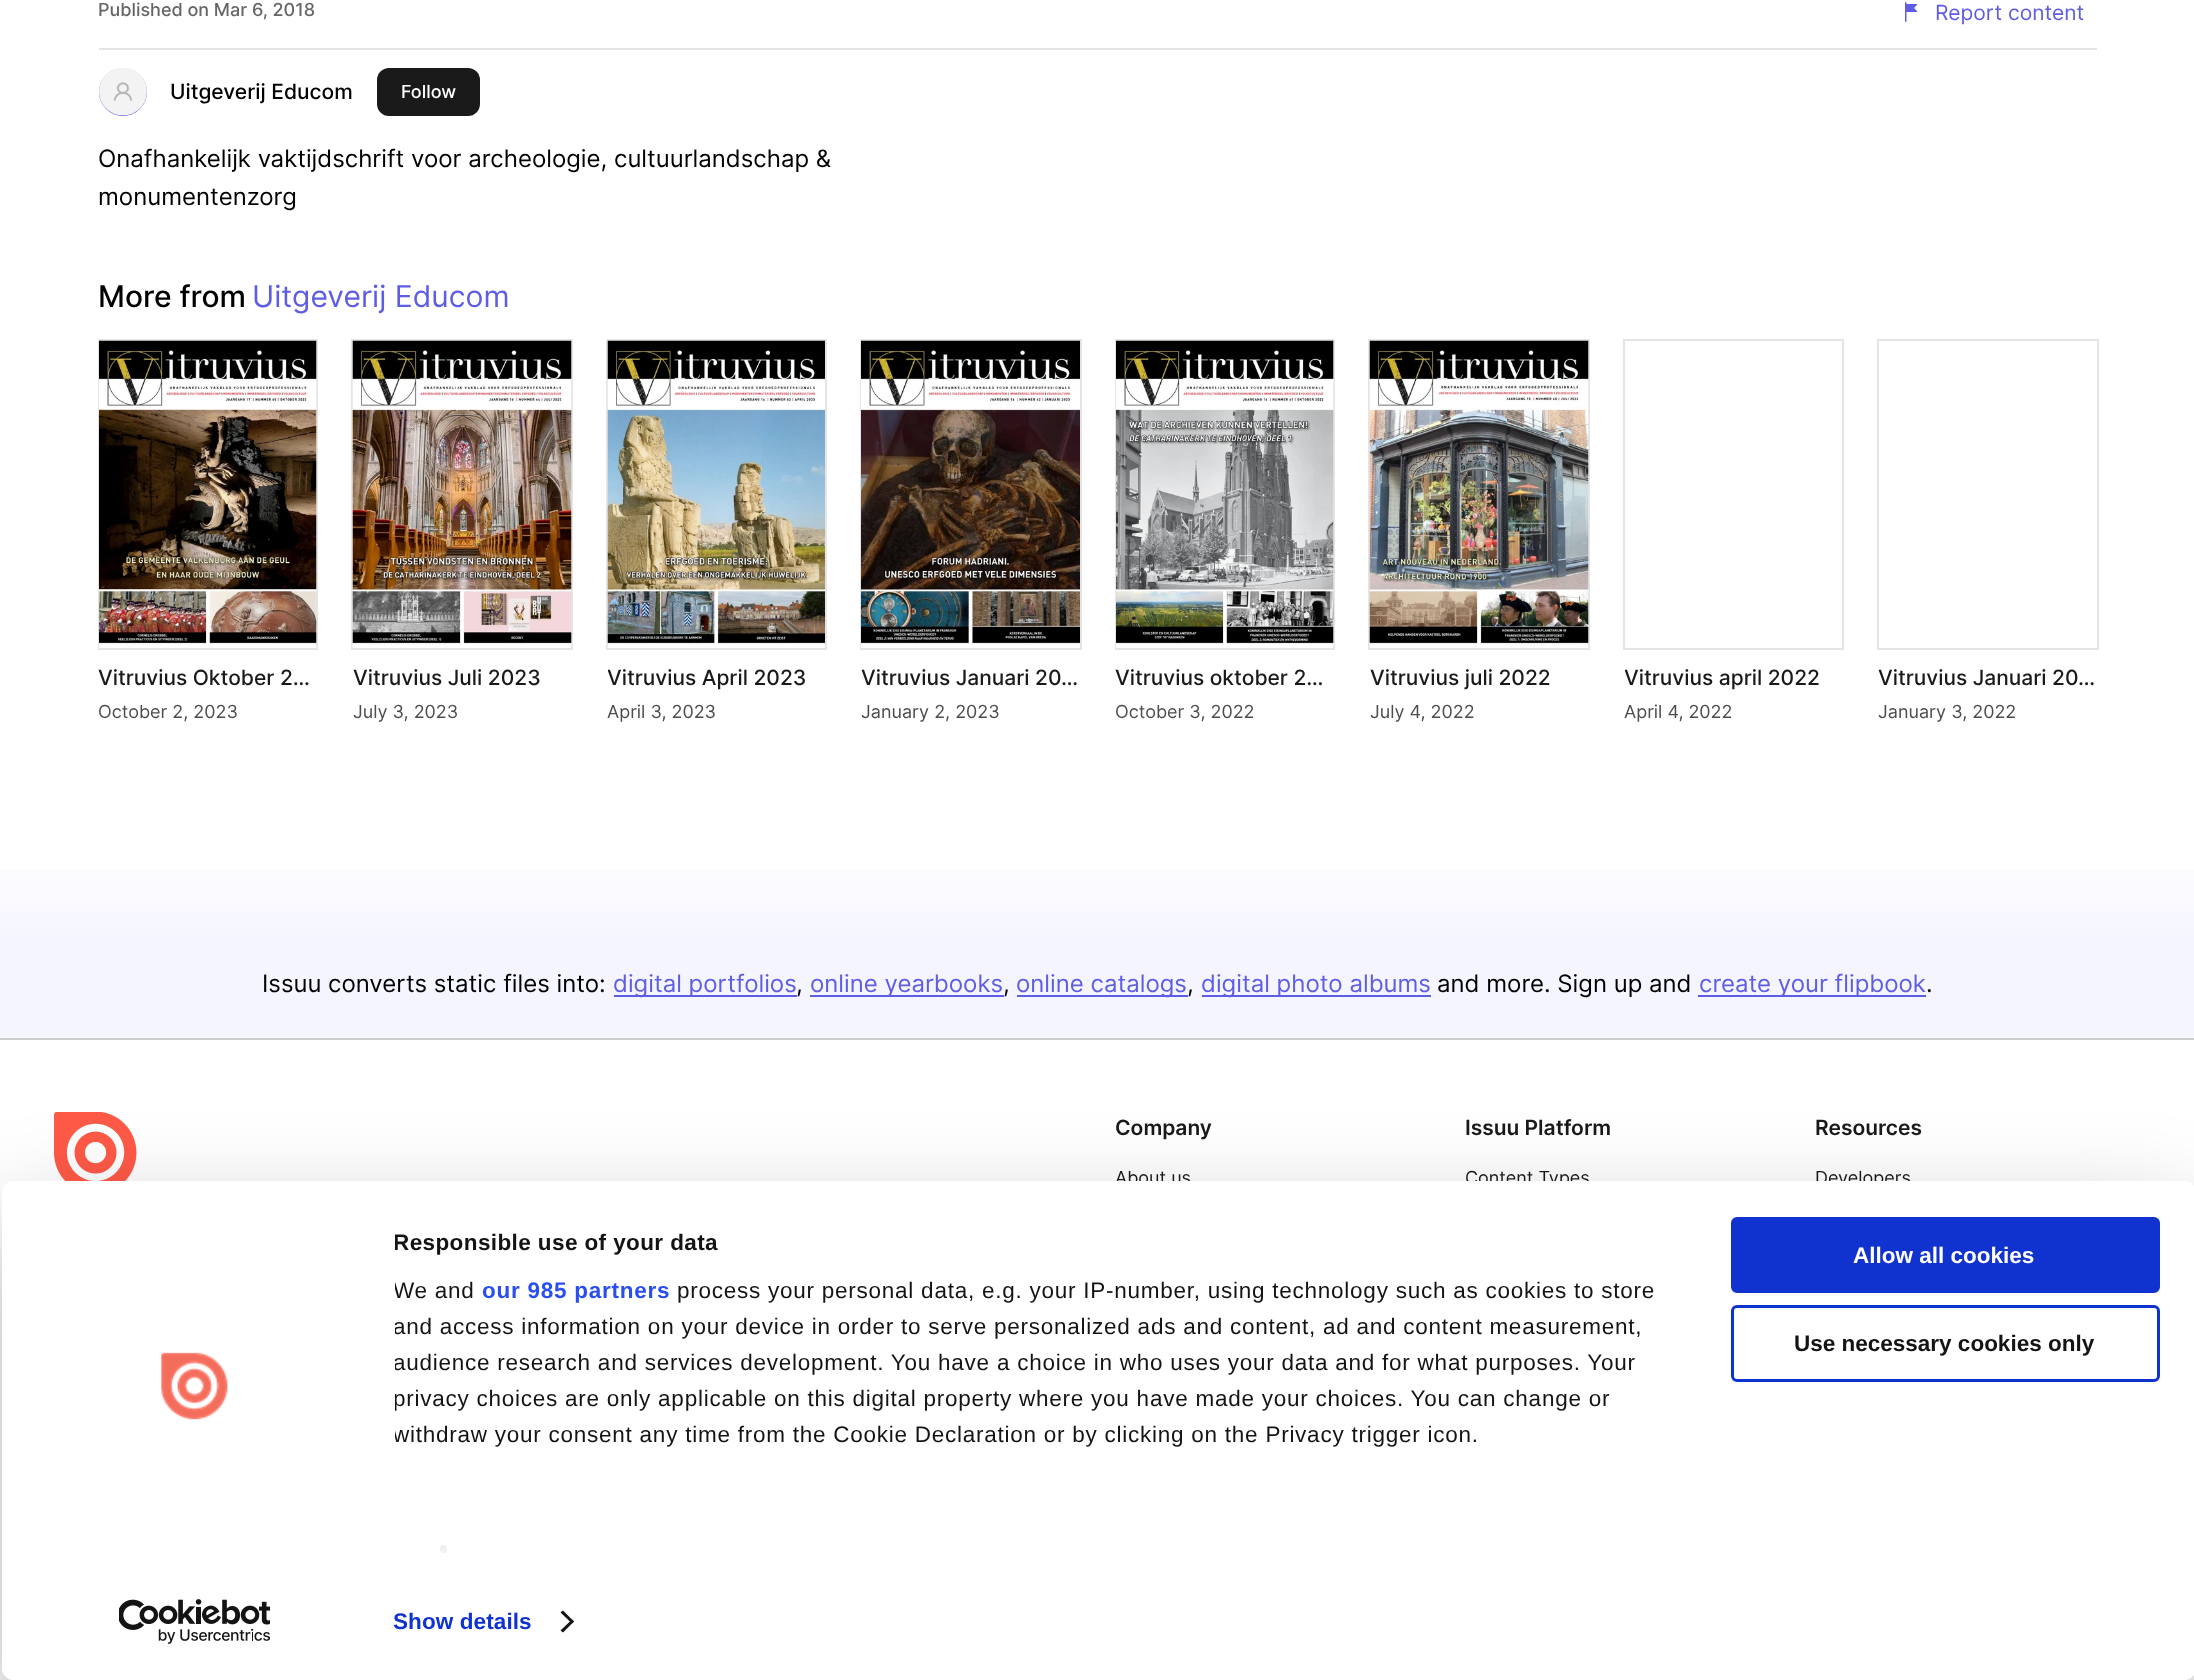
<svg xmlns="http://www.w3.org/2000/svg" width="2194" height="1680">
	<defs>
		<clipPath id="clip1"><rect x="608" y="648" width="217" height="47" /></clipPath>
		<clipPath id="clip2"><rect x="1625" y="648" width="217" height="47" /></clipPath>
		<linearGradient id="g1" gradientUnits="userSpaceOnUse" x1="1097" y1="846" x2="1097" y2="942"><stop offset="0" stop-color="#FFFFFF" /><stop offset="1" stop-color="#F5F5FF" /></linearGradient>
		<clipPath id="clip3"><path d="M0 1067H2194V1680H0ZM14 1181H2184C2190.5 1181 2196 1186.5 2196 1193V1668C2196 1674.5 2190.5 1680 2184 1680H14C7.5 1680 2 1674.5 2 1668V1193C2 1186.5 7.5 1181 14 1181Z" clip-rule="evenodd" /></clipPath>
		<clipPath id="clip4"><rect x="395" y="1226" width="1327" height="331" /></clipPath>
		<linearGradient id="g2" gradientUnits="userSpaceOnUse" x1="1042" y1="1566" x2="1042" y2="1454"><stop offset="0" stop-color="#FFFFFF" /><stop offset="0.5" stop-color="#FFFFFF" stop-opacity="0.8" /><stop offset="1" stop-color="#FFFFFF" stop-opacity="0" /></linearGradient>
	</defs>
	<rect width="100%" height="100%" fill="#FFFFFF" />
	<text x="98" y="16" font-family="Inter" font-size="18" font-weight="500" fill="#666666">Published on Mar 6, 2018</text>
	<image x="1905" y="2" width="13" height="20" href="assets/img1.png" />
	<text x="1935" y="20" font-family="Inter" font-size="21" fill="#5F5DE4">Report content</text>
	<rect x="99" y="48" width="1998" height="2" fill="#E5E5E5" />
	<circle cx="123" cy="92" r="24" fill="#5F5DE4" />
	<image x="99" y="68" width="48" height="48" href="assets/img2.png" />
	<text x="170" y="99" font-family="Inter" font-size="21" font-weight="500" fill="#000000">Uitgeverij Educom</text>
	<rect x="377" y="68" width="103" height="48" rx="12" fill="#1A1A1A" />
	<text x="401" y="98" font-family="Inter" font-size="18" font-weight="500" fill="#FFFFFF">Follow</text>
	<g font-family="Inter" font-size="24" fill="#000000">
		<text x="98" y="167">Onafhankelijk vaktijdschrift voor archeologie, cultuurlandschap &amp;</text>
		<text x="98" y="205">monumentenzorg</text>
	</g>
	<text x="98" y="307" font-family="Inter" font-size="30" font-weight="500" fill="#000000">More from</text>
	<text x="252" y="307" font-family="Inter" font-size="30" fill="#5F5DE4">Uitgeverij Educom</text>
	<rect x="99" y="340" width="218" height="309" fill="none" stroke="#E5E5E5" stroke-width="2" />
	<image x="99" y="340" width="218" height="308" href="assets/img3.png" />
	<text x="98" y="685" font-family="Inter" font-size="21" font-weight="500" fill="#1A1A1A">Vitruvius Oktober 2…</text>
	<text x="98" y="718" font-family="Inter" font-size="18" fill="#4D4D4D">October 2, 2023</text>
	<rect x="352" y="340" width="220" height="309" fill="none" stroke="#E5E5E5" stroke-width="2" />
	<image x="352" y="340" width="220" height="308" href="assets/img4.png" />
	<text x="353" y="685" font-family="Inter" font-size="21" font-weight="500" fill="#1A1A1A">Vitruvius Juli 2023</text>
	<text x="353" y="718" font-family="Inter" font-size="18" fill="#4D4D4D">July 3, 2023</text>
	<rect x="607" y="340" width="219" height="309" fill="none" stroke="#E5E5E5" stroke-width="2" />
	<image x="607" y="340" width="218" height="308" href="assets/img5.png" />
	<g clip-path="url(#clip1)">
		<text x="607" y="685" font-family="Inter" font-size="21" font-weight="500" fill="#1A1A1A">Vitruvius April 2023</text>
	</g>
	<text x="607" y="718" font-family="Inter" font-size="18" fill="#4D4D4D">April 3, 2023</text>
	<rect x="861" y="340" width="220" height="309" fill="none" stroke="#E5E5E5" stroke-width="2" />
	<image x="861" y="340" width="219" height="308" href="assets/img6.png" />
	<text x="861" y="685" font-family="Inter" font-size="21" font-weight="500" fill="#1A1A1A">Vitruvius Januari 20…</text>
	<text x="861" y="718" font-family="Inter" font-size="18" fill="#4D4D4D">January 2, 2023</text>
	<rect x="1116" y="340" width="218" height="309" fill="none" stroke="#E5E5E5" stroke-width="2" />
	<image x="1116" y="340" width="218" height="308" href="assets/img7.png" />
	<text x="1115" y="685" font-family="Inter" font-size="21" font-weight="500" fill="#1A1A1A">Vitruvius oktober 2…</text>
	<text x="1115" y="718" font-family="Inter" font-size="18" fill="#4D4D4D">October 3, 2022</text>
	<rect x="1369" y="340" width="220" height="309" fill="none" stroke="#E5E5E5" stroke-width="2" />
	<image x="1369" y="340" width="220" height="308" href="assets/img8.png" />
	<text x="1370" y="685" font-family="Inter" font-size="21" font-weight="500" fill="#1A1A1A">Vitruvius juli 2022</text>
	<text x="1370" y="718" font-family="Inter" font-size="18" fill="#4D4D4D">July 4, 2022</text>
	<rect x="1624" y="340" width="219" height="309" fill="none" stroke="#E5E5E5" stroke-width="2" />
	<g clip-path="url(#clip2)">
		<text x="1624" y="685" font-family="Inter" font-size="21" font-weight="500" fill="#1A1A1A">Vitruvius april 2022</text>
	</g>
	<text x="1624" y="718" font-family="Inter" font-size="18" fill="#4D4D4D">April 4, 2022</text>
	<rect x="1878" y="340" width="220" height="309" fill="none" stroke="#E5E5E5" stroke-width="2" />
	<text x="1878" y="685" font-family="Inter" font-size="21" font-weight="500" fill="#1A1A1A">Vitruvius Januari 20…</text>
	<text x="1878" y="718" font-family="Inter" font-size="18" fill="#4D4D4D">January 3, 2022</text>
	<rect x="0" y="870" width="2194" height="72" fill="url(#g1)" />
	<rect x="0" y="942" width="2194" height="96" fill="#F5F5FF" />
	<text x="262" y="992" font-family="Inter" font-size="24" fill="#000000">Issuu converts static files into:</text>
	<rect x="614" y="995" width="183" height="2" fill="#5F5DE4" />
	<text x="613" y="992" font-family="Inter" font-size="24" fill="#5F5DE4">digital portfolios</text>
	<text x="796" y="992" font-family="Inter" font-size="24" fill="#000000">,</text>
	<rect x="810" y="995" width="194" height="2" fill="#5F5DE4" />
	<text x="810" y="992" font-family="Inter" font-size="24" fill="#5F5DE4">online yearbooks</text>
	<text x="1003" y="992" font-family="Inter" font-size="24" fill="#000000">,</text>
	<rect x="1017" y="995" width="171" height="2" fill="#5F5DE4" />
	<text x="1016" y="992" font-family="Inter" font-size="24" fill="#5F5DE4">online catalogs</text>
	<text x="1187" y="992" font-family="Inter" font-size="24" fill="#000000">,</text>
	<rect x="1202" y="995" width="229" height="2" fill="#5F5DE4" />
	<text x="1201" y="992" font-family="Inter" font-size="24" fill="#5F5DE4">digital photo albums</text>
	<text x="1437" y="992" font-family="Inter" font-size="24" fill="#000000">and more. Sign up and</text>
	<rect x="1698" y="995" width="228" height="2" fill="#5F5DE4" />
	<text x="1699" y="992" font-family="Inter" font-size="24" fill="#5F5DE4">create your flipbook</text>
	<text x="1926" y="992" font-family="Inter" font-size="24" fill="#000000">.</text>
	<rect x="0" y="1038" width="2194" height="2" fill="#CCCCCC" />
	<image x="54" y="1112" width="83" height="69" href="assets/img9.png" />
	<text x="1115" y="1135" font-family="Inter" font-size="21" font-weight="600" fill="#1A1A1A">Company</text>
	<text x="1115" y="1184" font-family="Inter" font-size="18" fill="#1A1A1A">About us</text>
	<text x="1465" y="1135" font-family="Inter" font-size="21" font-weight="600" fill="#1A1A1A">Issuu Platform</text>
	<text x="1465" y="1184" font-family="Inter" font-size="18" fill="#1A1A1A">Content Types</text>
	<text x="1815" y="1135" font-family="Inter" font-size="21" font-weight="600" fill="#1A1A1A">Resources</text>
	<text x="1815" y="1184" font-family="Inter" font-size="18" fill="#1A1A1A">Developers</text>
	<g clip-path="url(#clip3)">
		<rect x="2" y="1226" width="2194" height="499" rx="12" fill="#000000" fill-opacity="0.3" filter="blur(52.5px)" />
	</g>
	<rect x="2" y="1181" width="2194" height="499" rx="12" fill="#FFFFFF" />
	<g clip-path="url(#clip4)">
		<text x="393" y="1250" font-family="Liberation Sans" font-size="22.5" font-weight="700" letter-spacing="0.4" fill="#141414">Responsible use of your data</text>
		<text x="393" y="1298" font-family="Liberation Sans" font-size="22.5" letter-spacing="0.75" fill="#141414">We and</text>
	</g>
	<text x="482" y="1298" font-family="Liberation Sans" font-size="22.5" font-weight="700" letter-spacing="0.75" fill="#2A4EEF">our 985 partners</text>
	<text x="677" y="1298" font-family="Liberation Sans" font-size="22.5" letter-spacing="0.75" fill="#141414">process your personal data, e.g. your IP-number, using technology such as cookies to store</text>
	<g clip-path="url(#clip4)">
		<g font-family="Liberation Sans" font-size="22.5" letter-spacing="0.75" fill="#141414">
			<text x="393" y="1334">and access information on your device in order to serve personalized ads and content, ad and content measurement,</text>
			<text x="393" y="1370">audience research and services development. You have a choice in who uses your data and for what purposes. Your</text>
			<text x="393" y="1406">privacy choices are only applicable on this digital property where you have made your choices. You can change or</text>
			<text x="393" y="1442">withdraw your consent any time from the Cookie Declaration or by clicking on the Privacy trigger icon.</text>
		</g>
	</g>
	<rect x="440" y="1545" width="7" height="8" rx="3.5" fill="#141414" />
	<rect x="440" y="1545" width="7" height="8" fill="url(#g2)" />
	<text x="393" y="1629" font-family="Liberation Sans" font-size="22.5" font-weight="700" letter-spacing="0.1" fill="#1032CF">Show details</text>
	<path d="M563 1610.5L574 1621.5L572 1623.5L560.5 1612.5Z" fill="#141414" />
	<path d="M572 1619.5L574 1621.5L563 1632.5L560.5 1630.5Z" fill="#141414" />
	<rect x="1732.5" y="1218.5" width="426" height="73" rx="4.5" fill="#1032CF" stroke="#1032CF" stroke-width="3" />
	<text x="1853" y="1263" font-family="Liberation Sans" font-size="22.5" font-weight="700" fill="#FFFFFF">Allow all cookies</text>
	<rect x="1732.5" y="1306.5" width="426" height="74" rx="4.5" fill="none" stroke="#1032CF" stroke-width="3" />
	<text x="1794" y="1351" font-family="Liberation Sans" font-size="22.5" font-weight="700" fill="#141414">Use necessary cookies only</text>
	<image x="160" y="1352" width="68" height="68" href="assets/img10.png" />
	<image x="119" y="1599" width="151" height="45" href="assets/img11.png" />
</svg>
